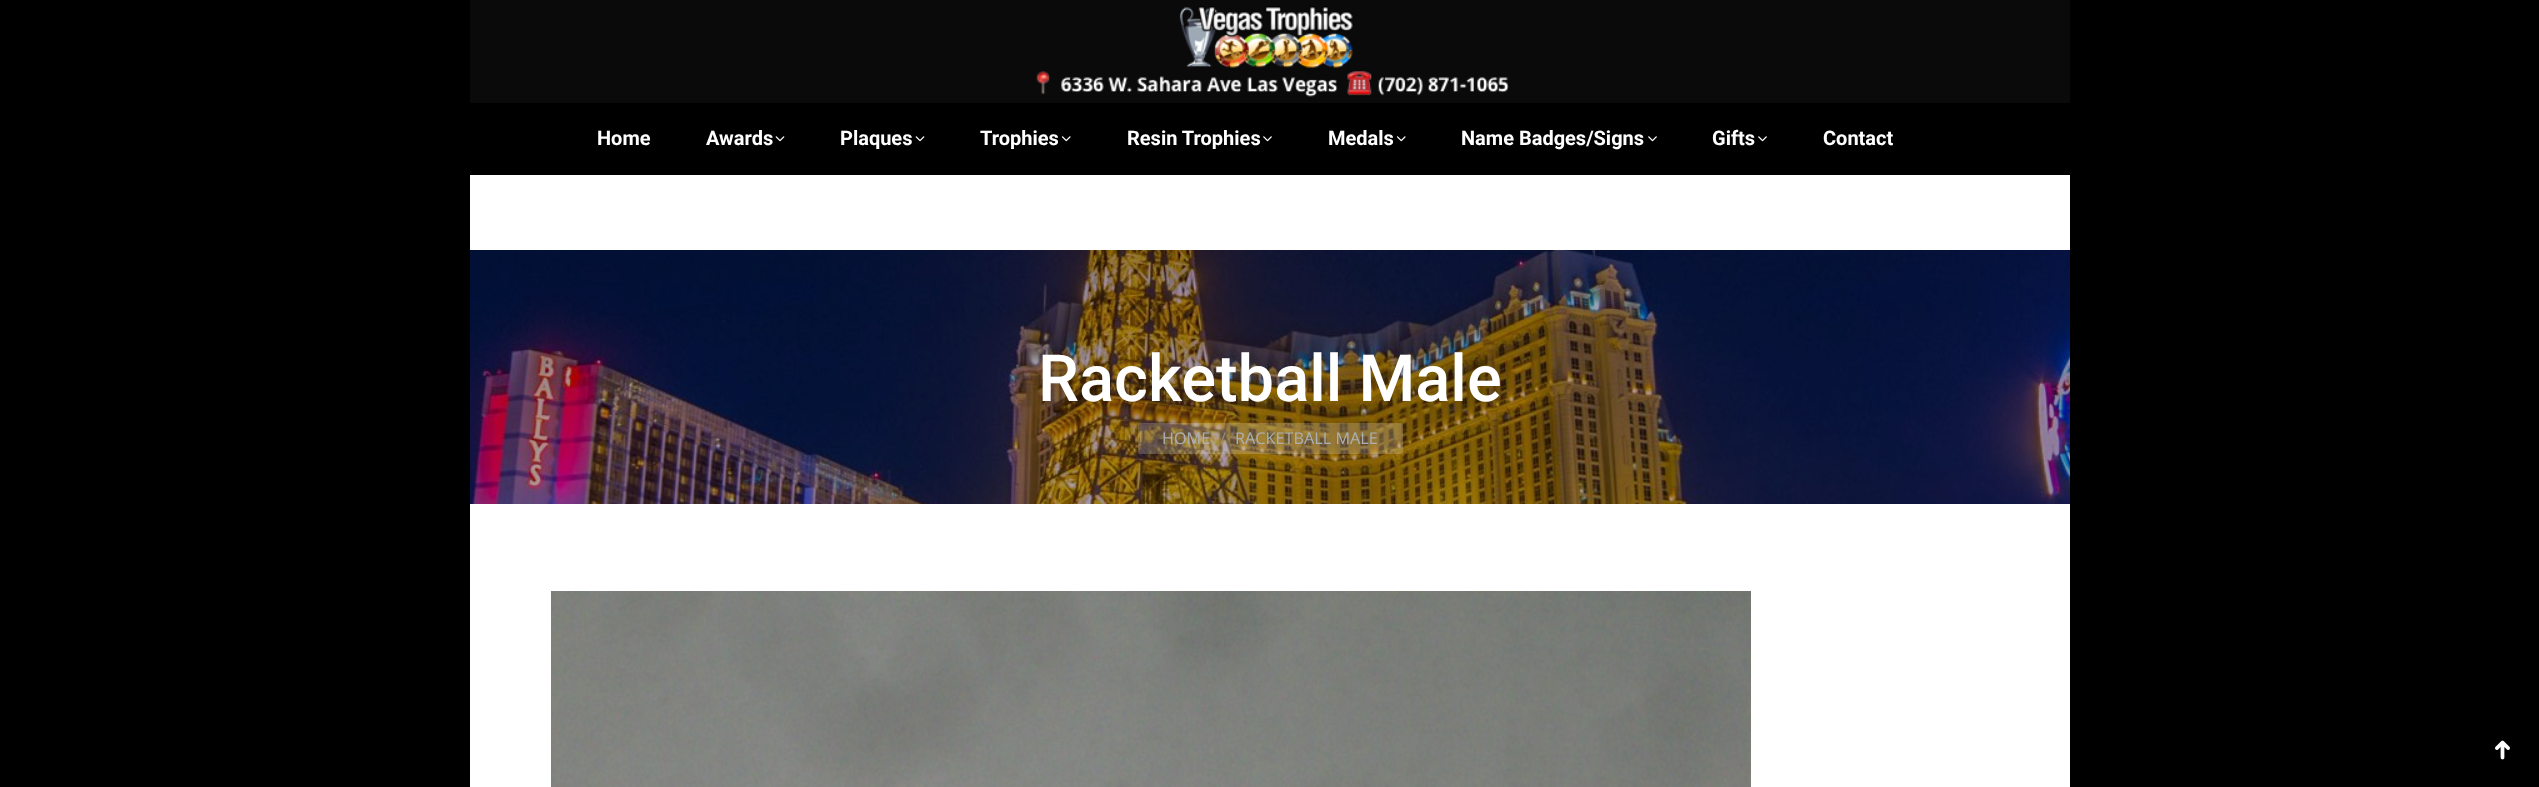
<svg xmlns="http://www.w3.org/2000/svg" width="2539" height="787">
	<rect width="100%" height="100%" fill="#000000" />
	<rect x="470" y="175" width="1600" height="612" fill="#FFFFFF" />
	<rect x="470" y="0" width="1600" height="103" fill="#0A0A0A" />
	<image x="1036" y="6" width="473" height="91" href="assets/img1.png" />
	<g font-family="Roboto" font-size="20" font-weight="700" fill="#FFFFFF">
		<text x="597" y="145">Home</text>
		<text x="706" y="145">Awards</text>
	</g>
	<image x="775" y="136" width="10" height="6" href="assets/img2.png" />
	<text x="840" y="145" font-family="Roboto" font-size="20" font-weight="700" fill="#FFFFFF">Plaques</text>
	<image x="915" y="136" width="10" height="6" href="assets/img2.png" />
	<text x="980" y="145" font-family="Roboto" font-size="20" font-weight="700" fill="#FFFFFF">Trophies</text>
	<image x="1061" y="136" width="10" height="6" href="assets/img3.png" />
	<text x="1127" y="145" font-family="Roboto" font-size="20" font-weight="700" fill="#FFFFFF">Resin Trophies</text>
	<image x="1263" y="136" width="9" height="6" href="assets/img4.png" />
	<text x="1328" y="145" font-family="Roboto" font-size="20" font-weight="700" fill="#FFFFFF">Medals</text>
	<image x="1396" y="136" width="10" height="6" href="assets/img3.png" />
	<text x="1461" y="145" font-family="Roboto" font-size="20" font-weight="700" fill="#FFFFFF">Name Badges/Signs</text>
	<image x="1648" y="136" width="9" height="6" href="assets/img4.png" />
	<text x="1712" y="145" font-family="Roboto" font-size="20" font-weight="700" fill="#FFFFFF">Gifts</text>
	<image x="1758" y="136" width="9" height="6" href="assets/img4.png" />
	<text x="1823" y="145" font-family="Roboto" font-size="20" font-weight="700" fill="#FFFFFF">Contact</text>
	<image x="470" y="250" width="1600" height="254" href="assets/img5.png" />
	<text x="1038" y="401" font-family="Roboto" font-size="65" font-weight="500" fill="#FFFFFF">Racketball Male</text>
	<rect x="1138" y="423" width="265" height="31" rx="2.5" fill="#FFFFFF" fill-opacity="0.2" />
	<text x="1162" y="444" font-family="Open Sans" font-size="16.25" fill="#ADB0B6">HOME</text>
	<text x="1220" y="444" font-family="Open Sans" font-size="16.25" fill="#968B7E">/</text>
	<text x="1235" y="444" font-family="Open Sans" font-size="16.25" fill="#ADB0B6">RACKETBALL MALE</text>
	<image x="551" y="591" width="1200" height="196" href="assets/img6.png" />
	<image x="2495" y="740" width="15" height="20" href="assets/img7.png" />
</svg>
